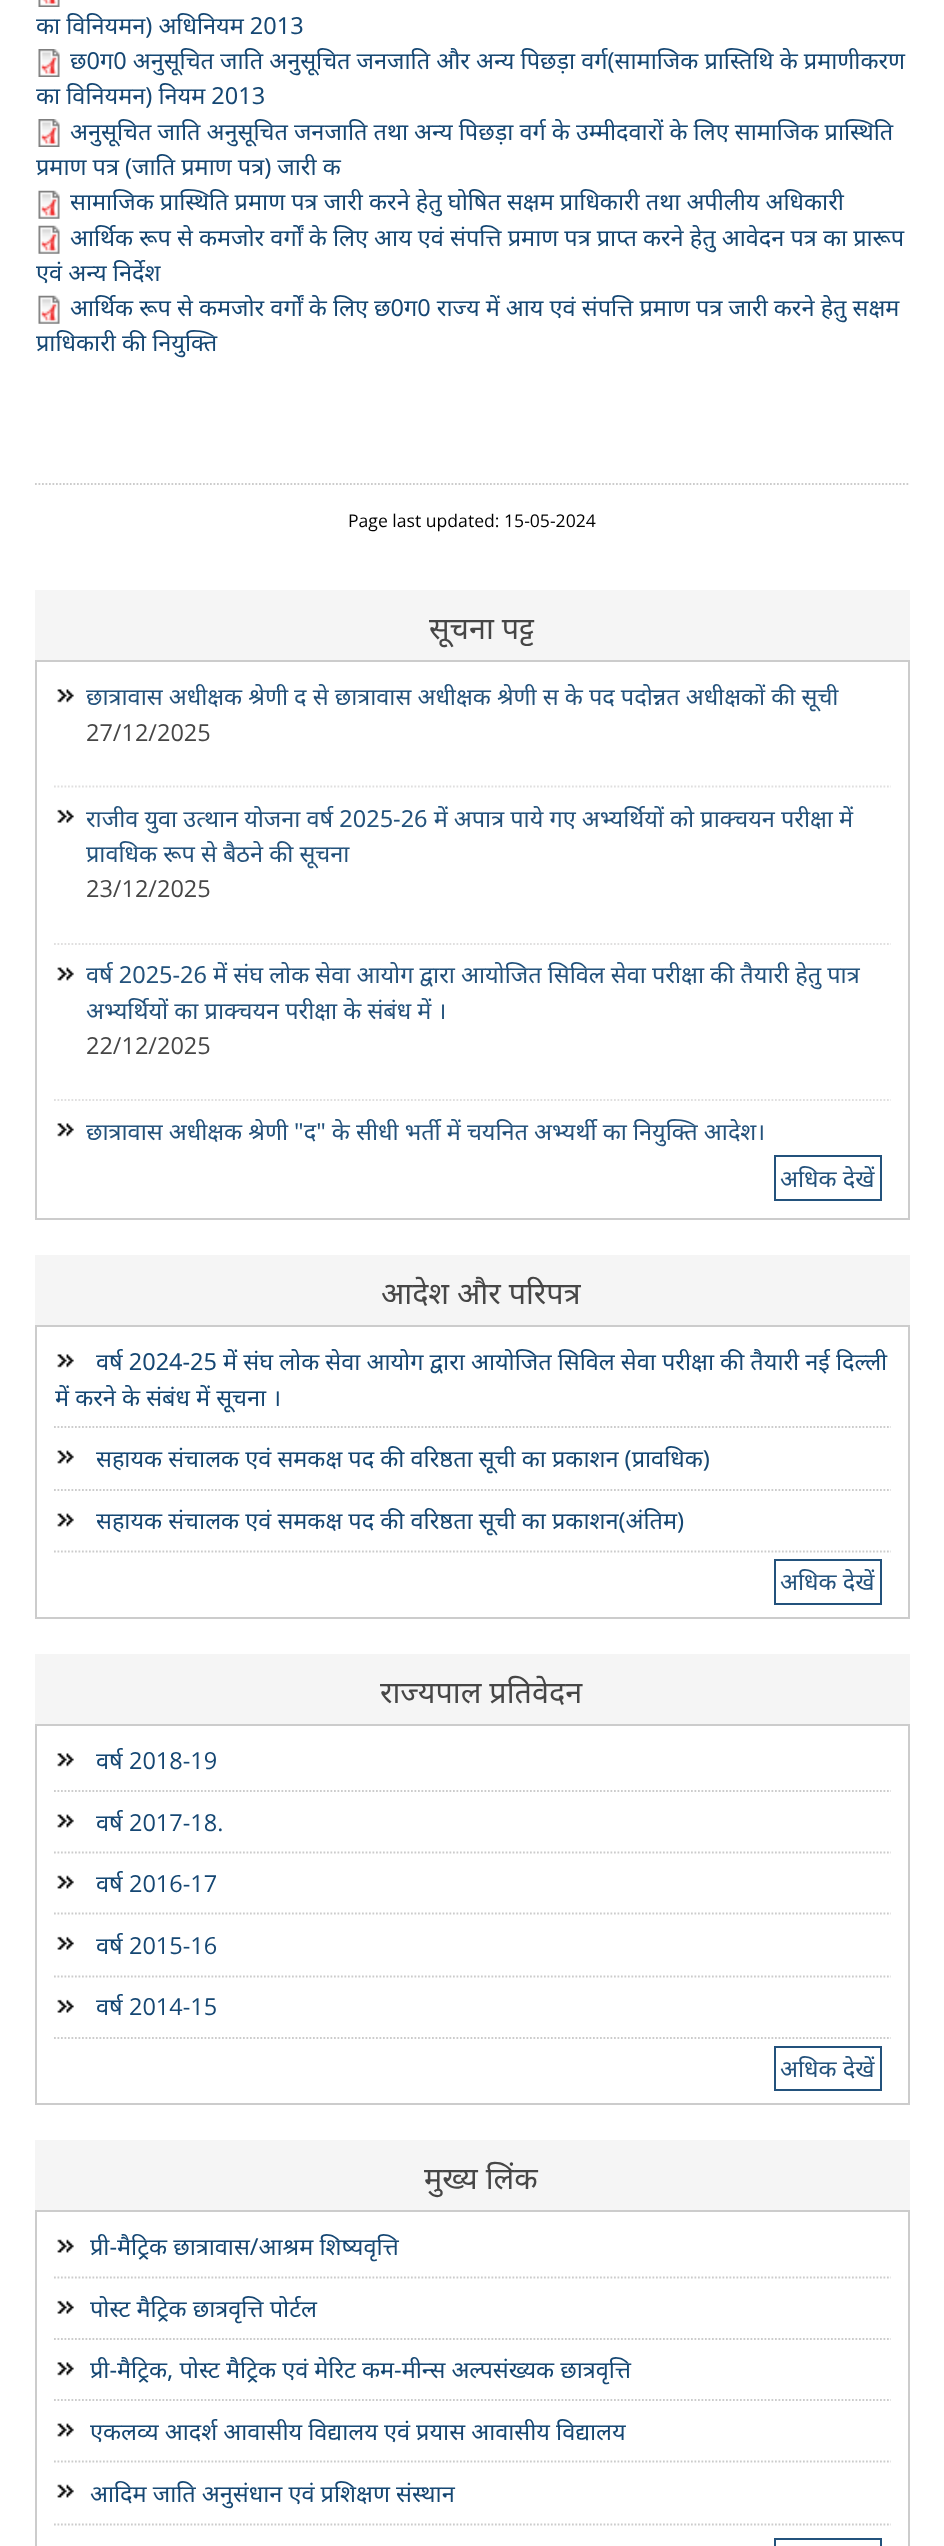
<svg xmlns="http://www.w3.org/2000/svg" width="944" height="2546">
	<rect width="100%" height="100%" fill="#FFFFFF" />
	<image x="38" y="0" width="22" height="7" href="assets/img1.png" />
	<text x="36" y="34" font-family="Noto Sans" font-size="23.5" fill="#154773">का विनियमन) अधिनियम 2013</text>
	<image x="38" y="49" width="22" height="28" href="assets/img2.png" />
	<g font-family="Noto Sans" font-size="23.5" fill="#154773">
		<text x="70" y="69">छ0ग0 अनुसूचित जाति अनुसूचित जनजाति और अन्य पिछड़ा वर्ग(सामाजिक प्रास्तिथि के प्रमाणीकरण</text>
		<text x="36" y="104">का विनियमन) नियम 2013</text>
	</g>
	<image x="38" y="119" width="22" height="28" href="assets/img2.png" />
	<g font-family="Noto Sans" font-size="23.5" fill="#154773">
		<text x="70" y="140">अनुसूचित जाति अनुसूचित जनजाति तथा अन्य पिछड़ा वर्ग के उम्मीदवारों के लिए सामाजिक प्रास्थिति</text>
		<text x="36" y="175">प्रमाण पत्र (जाति प्रमाण पत्र) जारी क</text>
	</g>
	<image x="38" y="190" width="22" height="29" href="assets/img3.png" />
	<text x="70" y="210" font-family="Noto Sans" font-size="23.5" fill="#154773">सामाजिक प्रास्थिति प्रमाण पत्र जारी करने हेतु घोषित सक्षम प्राधिकारी तथा अपीलीय अधिकारी</text>
	<image x="38" y="225" width="22" height="29" href="assets/img3.png" />
	<g font-family="Noto Sans" font-size="23.5" fill="#154773">
		<text x="70" y="246">आर्थिक रूप से कमजोर वर्गों के लिए आय एवं संपत्ति प्रमाण पत्र प्राप्त करने हेतु आवेदन पत्र का प्रारूप</text>
		<text x="36" y="281">एवं अन्य निर्देश</text>
	</g>
	<image x="38" y="295" width="22" height="29" href="assets/img3.png" />
	<g font-family="Noto Sans" font-size="23.5" fill="#154773">
		<text x="70" y="316">आर्थिक रूप से कमजोर वर्गों के लिए छ0ग0 राज्य में आय एवं संपत्ति प्रमाण पत्र जारी करने हेतु सक्षम</text>
		<text x="36" y="351">प्राधिकारी की नियुक्ति</text>
	</g>
	<path d="M35 484H910" fill="none" stroke="#CCCCCC" stroke-width="1.8" stroke-dasharray="1.75 1.75" />
	<text x="348" y="527" font-family="Open Sans" font-size="17.6" fill="#000000">Page last updated: 15-05-2024</text>
	<rect x="35" y="590" width="875" height="70" fill="#F5F5F5" />
	<text x="429" y="639" font-family="Noto Sans" font-size="30.5" fill="#464646">सूचना पट्ट</text>
	<rect x="36" y="661" width="873" height="558" fill="none" stroke="#CCCCCC" stroke-width="2" />
	<image x="57" y="689" width="17" height="14" href="assets/img4.png" />
	<path d="M54 786.5H891" fill="none" stroke="#E0DFDF" stroke-width="1.8" stroke-dasharray="1.75 1.75" />
	<text x="86" y="705" font-family="Noto Sans" font-size="23.5" fill="#23527C">छात्रावास अधीक्षक श्रेणी द से छात्रावास अधीक्षक श्रेणी स के पद पदोन्नत अधीक्षकों की सूची</text>
	<text x="86" y="741" font-family="Open Sans" font-size="23.5" fill="#464646">27/12/2025</text>
	<image x="57" y="809" width="17" height="14" href="assets/img5.png" />
	<path d="M54 944H891" fill="none" stroke="#E0DFDF" stroke-width="1.8" stroke-dasharray="1.75 1.75" />
	<g font-family="Noto Sans" font-size="23.5" fill="#23527C">
		<text x="86" y="827">राजीव युवा उत्थान योजना वर्ष 2025-26 में अपात्र पाये गए अभ्यर्थियों को प्राक्चयन परीक्षा में</text>
		<text x="86" y="862">प्रावधिक रूप से बैठने की सूचना</text>
	</g>
	<text x="86" y="897" font-family="Open Sans" font-size="23.5" fill="#464646">23/12/2025</text>
	<image x="57" y="967" width="17" height="14" href="assets/img6.png" />
	<path d="M54 1100H891" fill="none" stroke="#E0DFDF" stroke-width="1.8" stroke-dasharray="1.75 1.75" />
	<g font-family="Noto Sans" font-size="23.5" fill="#23527C">
		<text x="86" y="983">वर्ष 2025-26 में संघ लोक सेवा आयोग द्वारा आयोजित सिविल सेवा परीक्षा की तैयारी हेतु पात्र</text>
		<text x="86" y="1019">अभ्यर्थियों का प्राक्चयन परीक्षा के संबंध में ।</text>
	</g>
	<text x="86" y="1054" font-family="Open Sans" font-size="23.5" fill="#464646">22/12/2025</text>
	<image x="57" y="1123" width="17" height="14" href="assets/img4.png" />
	<text x="86" y="1140" font-family="Noto Sans" font-size="23.5" fill="#23527C">छात्रावास अधीक्षक श्रेणी "द" के सीधी भर्ती में चयनित अभ्यर्थी का नियुक्ति आदेश।</text>
	<rect x="775" y="1156" width="106" height="44" fill="none" stroke="#23527C" stroke-width="2" />
	<text x="780" y="1187" font-family="Noto Sans" font-size="23.5" fill="#23527C">अधिक देखें</text>
	<rect x="35" y="1255" width="875" height="70" fill="#F5F5F5" />
	<text x="381" y="1304" font-family="Noto Sans" font-size="30.5" fill="#464646">आदेश और परिपत्र</text>
	<rect x="36" y="1326" width="873" height="292" fill="none" stroke="#CCCCCC" stroke-width="2" />
	<path d="M54 1427H891" fill="none" stroke="#CCCCCC" stroke-width="1.8" stroke-dasharray="1.75 1.75" />
	<image x="57" y="1354" width="17" height="14" href="assets/img4.png" />
	<g font-family="Noto Sans" font-size="23.5" fill="#154773">
		<text x="96" y="1370">वर्ष 2024-25 में संघ लोक सेवा आयोग द्वारा आयोजित सिविल सेवा परीक्षा की तैयारी नई दिल्ली</text>
		<text x="55" y="1406">में करने के संबंध में सूचना ।</text>
	</g>
	<path d="M54 1490H891" fill="none" stroke="#CCCCCC" stroke-width="1.8" stroke-dasharray="1.75 1.75" />
	<image x="57" y="1450" width="17" height="14" href="assets/img7.png" />
	<text x="96" y="1467" font-family="Noto Sans" font-size="23.5" fill="#154773">सहायक संचालक एवं समकक्ष पद की वरिष्ठता सूची का प्रकाशन (प्रावधिक)</text>
	<path d="M54 1551.5H891" fill="none" stroke="#CCCCCC" stroke-width="1.8" stroke-dasharray="1.75 1.75" />
	<image x="57" y="1513" width="17" height="14" href="assets/img7.png" />
	<text x="96" y="1529" font-family="Noto Sans" font-size="23.5" fill="#154773">सहायक संचालक एवं समकक्ष पद की वरिष्ठता सूची का प्रकाशन(अंतिम)</text>
	<rect x="775" y="1560" width="106" height="44" fill="none" stroke="#23527C" stroke-width="2" />
	<text x="780" y="1590" font-family="Noto Sans" font-size="23.5" fill="#23527C">अधिक देखें</text>
	<rect x="35" y="1654" width="875" height="70" fill="#F5F5F5" />
	<text x="380" y="1703" font-family="Noto Sans" font-size="30.5" fill="#464646">राज्यपाल प्रतिवेदन</text>
	<rect x="36" y="1725" width="873" height="379" fill="none" stroke="#CCCCCC" stroke-width="2" />
	<path d="M54 1791H891" fill="none" stroke="#CCCCCC" stroke-width="1.8" stroke-dasharray="1.75 1.75" />
	<image x="57" y="1753" width="17" height="14" href="assets/img4.png" />
	<text x="96" y="1769" font-family="Noto Sans" font-size="23.5" fill="#154773">वर्ष</text>
	<text x="129" y="1769" font-family="Open Sans" font-size="23.5" fill="#154773">2018-19</text>
	<path d="M54 1852.5H891" fill="none" stroke="#CCCCCC" stroke-width="1.8" stroke-dasharray="1.75 1.75" />
	<image x="57" y="1814" width="17" height="14" href="assets/img7.png" />
	<text x="96" y="1831" font-family="Noto Sans" font-size="23.5" fill="#154773">वर्ष</text>
	<text x="129" y="1831" font-family="Open Sans" font-size="23.5" fill="#154773">2017-18.</text>
	<path d="M54 1913.5H891" fill="none" stroke="#CCCCCC" stroke-width="1.8" stroke-dasharray="1.75 1.75" />
	<image x="57" y="1875" width="17" height="14" href="assets/img8.png" />
	<text x="96" y="1892" font-family="Noto Sans" font-size="23.5" fill="#154773">वर्ष</text>
	<text x="129" y="1892" font-family="Open Sans" font-size="23.5" fill="#154773">2016-17</text>
	<path d="M54 1976.5H891" fill="none" stroke="#CCCCCC" stroke-width="1.8" stroke-dasharray="1.75 1.75" />
	<image x="57" y="1936" width="17" height="14" href="assets/img5.png" />
	<text x="96" y="1954" font-family="Noto Sans" font-size="23.5" fill="#154773">वर्ष</text>
	<text x="129" y="1954" font-family="Open Sans" font-size="23.5" fill="#154773">2015-16</text>
	<path d="M54 2038H891" fill="none" stroke="#CCCCCC" stroke-width="1.8" stroke-dasharray="1.75 1.75" />
	<image x="57" y="1999" width="17" height="14" href="assets/img5.png" />
	<text x="96" y="2015" font-family="Noto Sans" font-size="23.5" fill="#154773">वर्ष</text>
	<text x="129" y="2015" font-family="Open Sans" font-size="23.5" fill="#154773">2014-15</text>
	<rect x="775" y="2047" width="106" height="43" fill="none" stroke="#23527C" stroke-width="2" />
	<text x="780" y="2077" font-family="Noto Sans" font-size="23.5" fill="#23527C">अधिक देखें</text>
	<rect x="35" y="2140" width="875" height="70" fill="#F5F5F5" />
	<text x="424" y="2189" font-family="Noto Sans" font-size="30.5" fill="#464646">मुख्य लिंक</text>
	<rect x="36" y="2211" width="873" height="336" fill="none" stroke="#CCCCCC" stroke-width="2" />
	<path d="M54 2277.5H891" fill="none" stroke="#CCCCCC" stroke-width="1.8" stroke-dasharray="1.75 1.75" />
	<image x="57" y="2239" width="17" height="14" href="assets/img8.png" />
	<text x="90" y="2255" font-family="Noto Sans" font-size="23.5" fill="#154773">प्री-मैट्रिक छात्रावास/आश्रम शिष्यवृत्ति</text>
	<path d="M54 2339H891" fill="none" stroke="#CCCCCC" stroke-width="1.8" stroke-dasharray="1.75 1.75" />
	<image x="57" y="2300" width="17" height="14" href="assets/img5.png" />
	<text x="90" y="2317" font-family="Noto Sans" font-size="23.5" fill="#154773">पोस्ट मैट्रिक छात्रवृत्ति पोर्टल</text>
	<path d="M54 2400H891" fill="none" stroke="#CCCCCC" stroke-width="1.8" stroke-dasharray="1.75 1.75" />
	<image x="57" y="2362" width="17" height="14" href="assets/img4.png" />
	<text x="90" y="2378" font-family="Noto Sans" font-size="23.5" fill="#154773">प्री-मैट्रिक, पोस्ट मैट्रिक एवं मेरिट कम-मीन्स अल्पसंख्यक छात्रवृत्ति</text>
	<path d="M54 2461.5H891" fill="none" stroke="#CCCCCC" stroke-width="1.8" stroke-dasharray="1.75 1.75" />
	<image x="57" y="2423" width="17" height="14" href="assets/img7.png" />
	<text x="90" y="2440" font-family="Noto Sans" font-size="23.5" fill="#154773">एकलव्य आदर्श आवासीय विद्यालय एवं प्रयास आवासीय विद्यालय</text>
	<path d="M54 2524.5H891" fill="none" stroke="#CCCCCC" stroke-width="1.8" stroke-dasharray="1.75 1.75" />
	<image x="57" y="2484" width="17" height="14" href="assets/img8.png" />
	<text x="90" y="2502" font-family="Noto Sans" font-size="23.5" fill="#154773">आदिम जाति अनुसंधान एवं प्रशिक्षण संस्थान</text>
	<rect x="775" y="2539" width="106" height="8" fill="none" stroke="#23527C" stroke-width="2" />
</svg>
